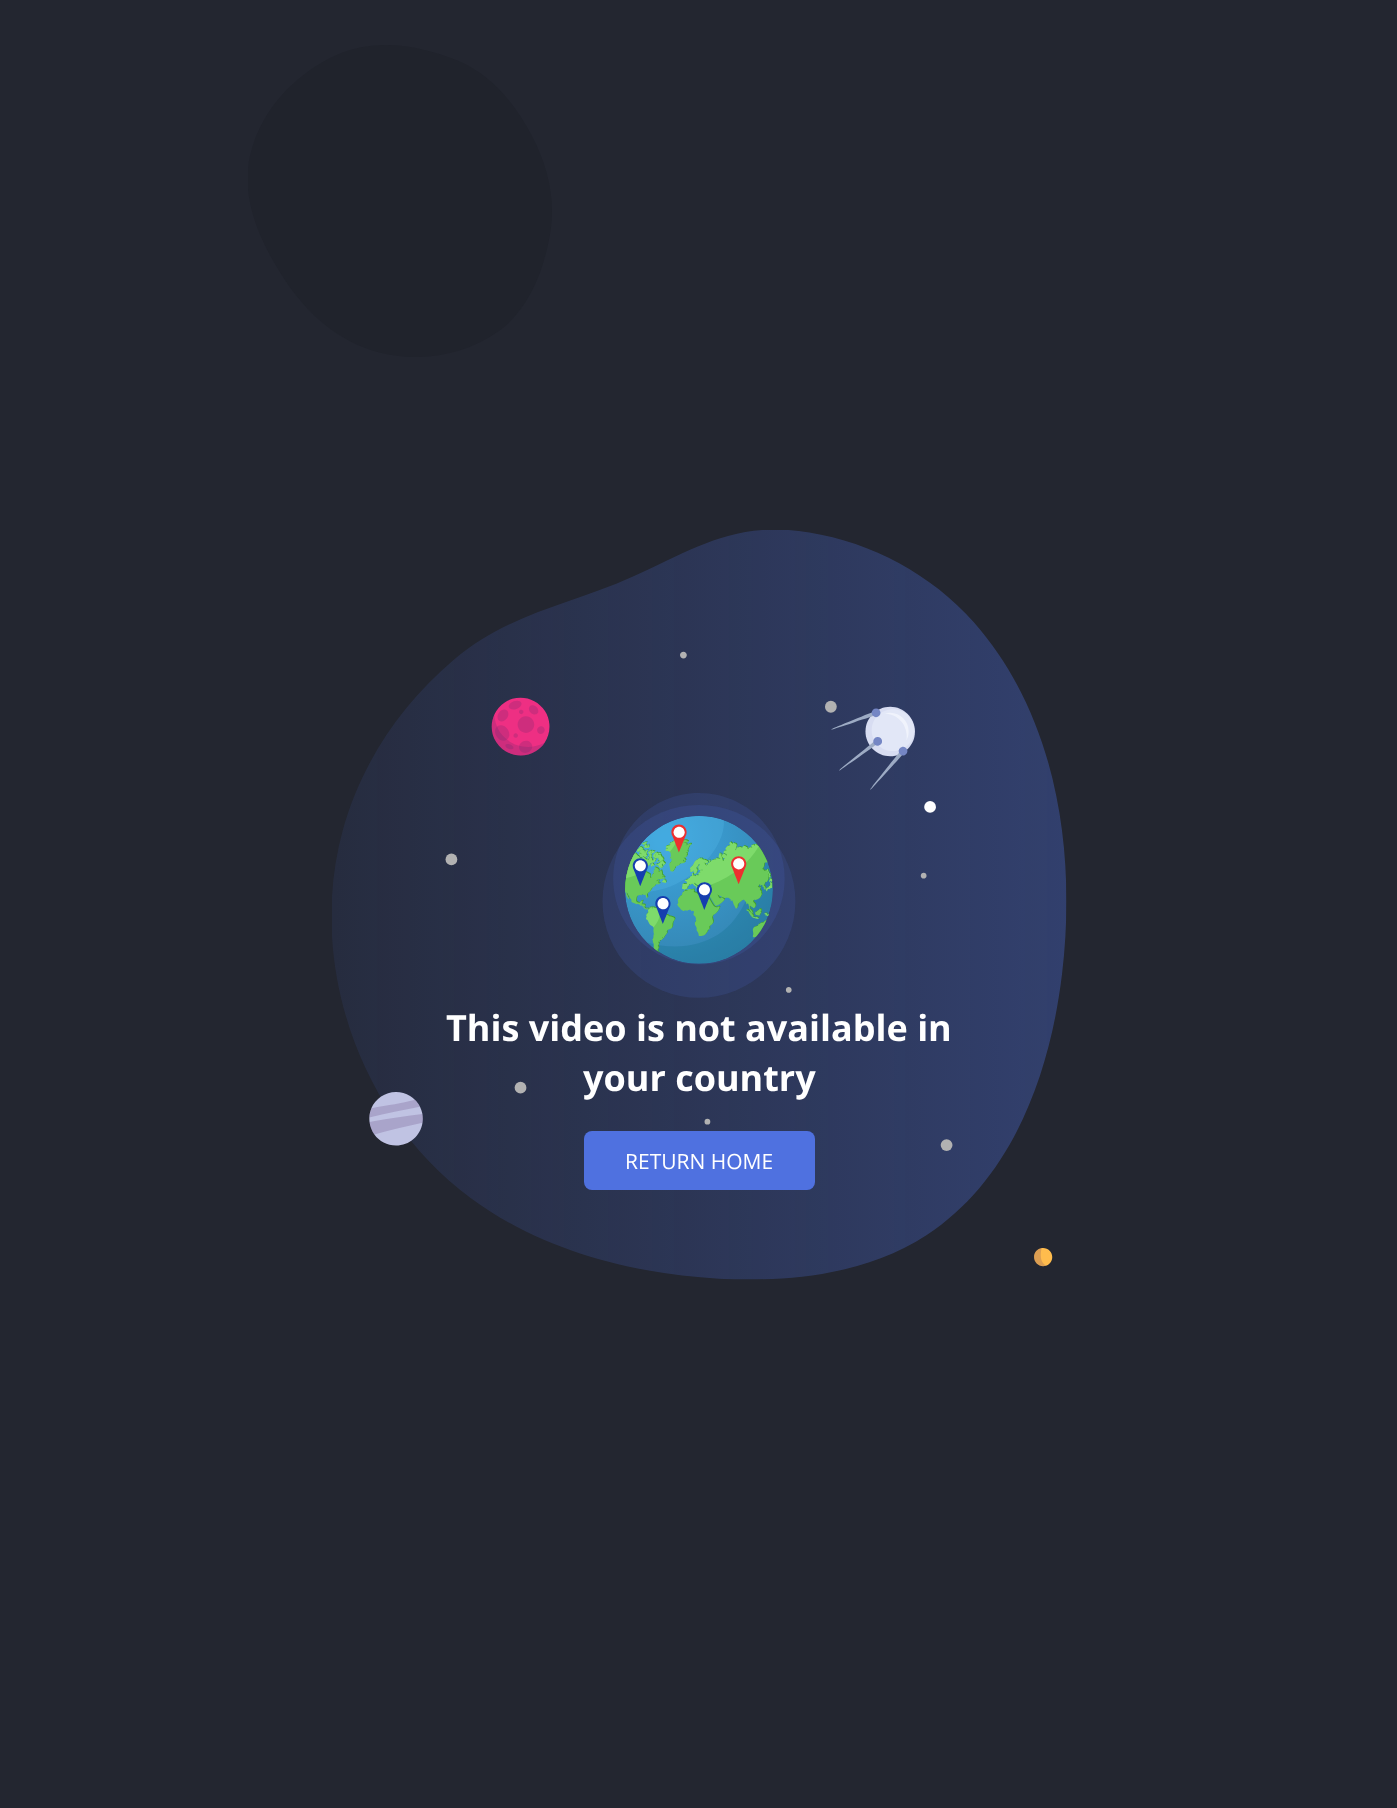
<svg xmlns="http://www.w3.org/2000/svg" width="1397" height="1808">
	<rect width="100%" height="100%" fill="#232630" />
	<image x="248" y="45" width="304" height="312" href="assets/img1.png" />
	<image x="332" y="530" width="735" height="750" href="assets/img2.png" />
	<g font-family="Open Sans" font-size="36" font-weight="700" fill="#FFFFFF">
		<text x="446" y="1041">This video is not available in</text>
		<text x="583" y="1091">your country</text>
	</g>
	<rect x="584" y="1131" width="231" height="59" rx="8" fill="#4F71E0" />
	<text x="625" y="1169" font-family="Open Sans" font-size="21" fill="#FFFFFF">RETURN HOME</text>
</svg>
